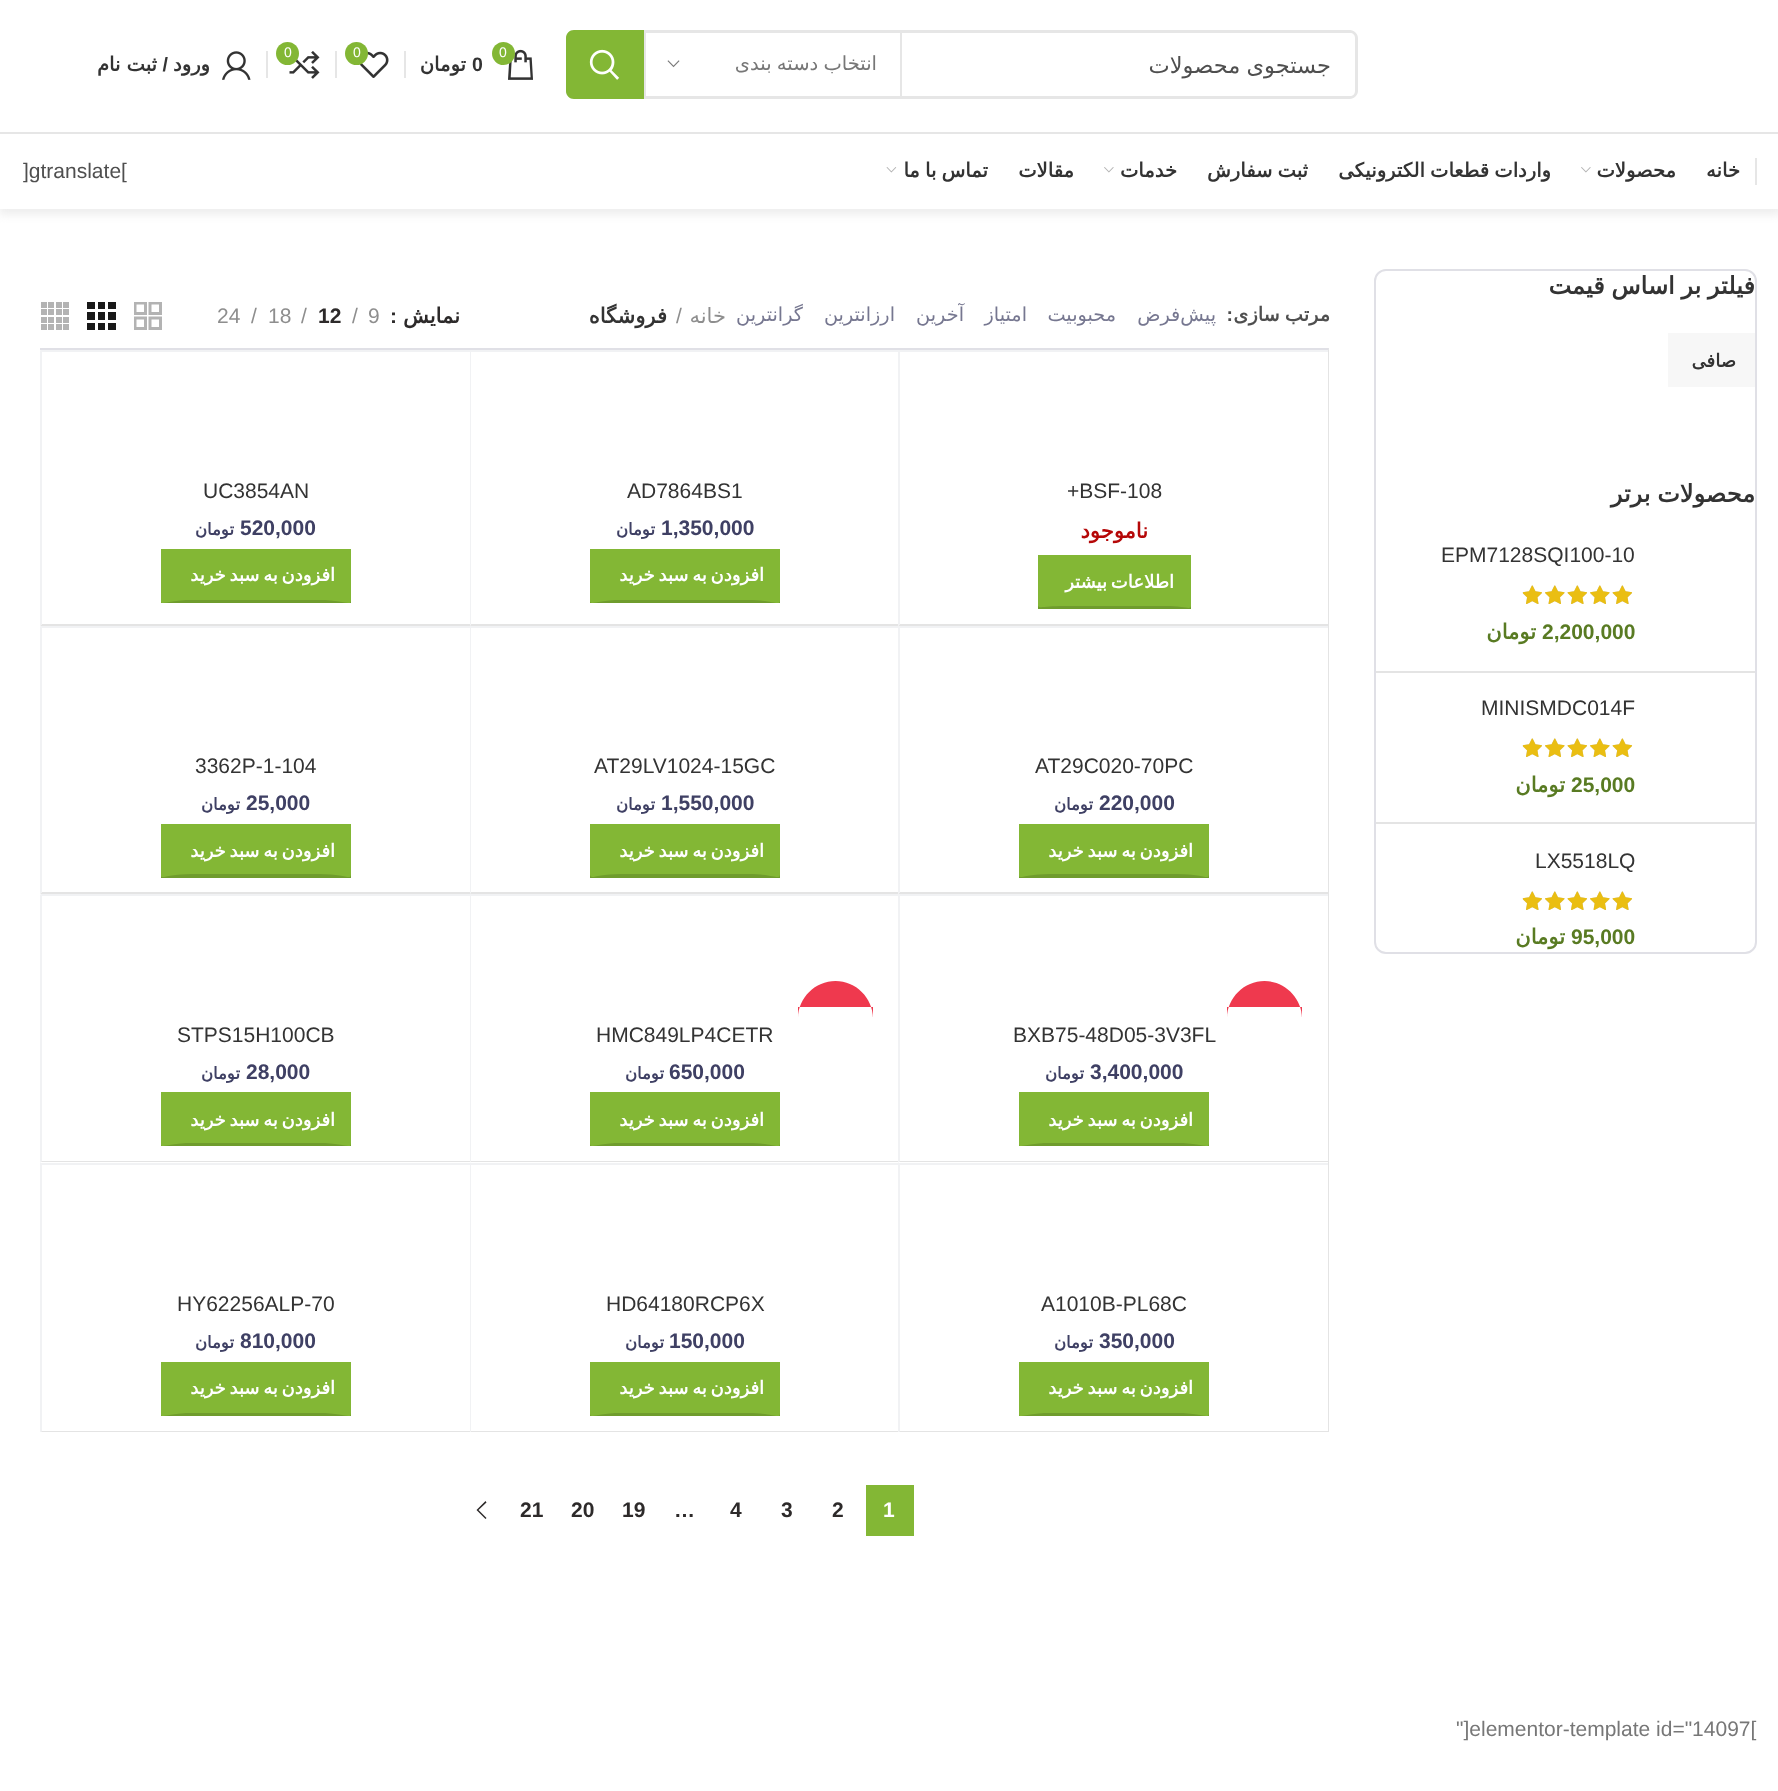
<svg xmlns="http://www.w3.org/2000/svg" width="1778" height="1791">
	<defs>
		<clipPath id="clip1"><rect x="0" y="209" width="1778" height="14" /></clipPath>
		<clipPath id="clip2"><rect x="1038" y="555" width="153" height="54" /></clipPath>
		<clipPath id="clip3"><rect x="590" y="549" width="190" height="54" /></clipPath>
		<clipPath id="clip4"><rect x="161" y="549" width="190" height="54" /></clipPath>
		<clipPath id="clip5"><rect x="1019" y="824" width="190" height="54" /></clipPath>
		<clipPath id="clip6"><rect x="590" y="824" width="190" height="54" /></clipPath>
		<clipPath id="clip7"><rect x="161" y="824" width="190" height="54" /></clipPath>
		<clipPath id="clip8"><rect x="1019" y="1092" width="190" height="54" /></clipPath>
		<clipPath id="clip9"><rect x="590" y="1092" width="190" height="54" /></clipPath>
		<clipPath id="clip10"><rect x="161" y="1092" width="190" height="54" /></clipPath>
		<clipPath id="clip11"><rect x="1019" y="1362" width="190" height="54" /></clipPath>
		<clipPath id="clip12"><rect x="590" y="1362" width="190" height="54" /></clipPath>
		<clipPath id="clip13"><rect x="161" y="1362" width="190" height="54" /></clipPath>
	</defs>
	<rect width="100%" height="100%" fill="#FFFFFF" />
	<g clip-path="url(#clip1)">
		<rect x="-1" y="0" width="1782" height="215" fill="#EEEEEE" filter="blur(4px)" />
	</g>
	<rect x="0" y="132" width="1778" height="2" fill="#E6E6E6" />
	<path d="M574 30C570 30 566 34 566 38V91C566 95 570 99 574 99H1350C1354 99 1358 95 1358 91V38C1358 34 1354 30 1350 30ZM569 33V96H1350C1353 96 1355 94 1355 91V38C1355 35 1353 33 1350 33Z" fill="#E6E6E6" fill-rule="evenodd" />
	<text x="1331" y="73" word-spacing="-1" font-family="DejaVu Sans" font-size="22.5" direction="rtl" fill="#4F4F4F">جستجوی محصولات</text>
	<rect x="900" y="33" width="2" height="63" fill="#E6E6E6" />
	<rect x="644" y="33" width="2" height="63" fill="#E6E6E6" />
	<text x="877" y="70" word-spacing="-1" font-family="DejaVu Sans" font-size="19.5" direction="rtl" fill="#777777">انتخاب دسته بندی</text>
	<image x="667" y="60" width="13" height="8" href="assets/img1.png" />
	<path d="M574 30H644V99H574C569.5 99 566 95.5 566 91V38C566 33.5 569.5 30 574 30Z" fill="#83B735" />
	<image x="589" y="49" width="31" height="31" href="assets/img2.png" />
	<image x="508" y="49" width="25" height="31" href="assets/img3.png" />
	<circle cx="503.5" cy="53.5" r="11.5" fill="#83B735" />
	<text x="499" y="57" font-family="Liberation Sans" font-size="14" fill="#FFFFFF">0</text>
	<text x="472" y="71" font-family="Liberation Sans" font-size="19.5" font-weight="700" fill="#333333">0</text>
	<text x="466" y="71" font-family="DejaVu Sans" font-size="19.5" font-weight="700" direction="rtl" fill="#333333">تومان</text>
	<rect x="404" y="51" width="2" height="27" fill="#E6E6E6" />
	<image x="359" y="51" width="30" height="27" href="assets/img4.png" />
	<circle cx="356.5" cy="53.5" r="11.5" fill="#83B735" />
	<text x="353" y="57" font-family="Liberation Sans" font-size="14" fill="#FFFFFF">0</text>
	<rect x="335" y="51" width="2" height="27" fill="#E6E6E6" />
	<image x="289" y="51" width="31" height="28" href="assets/img5.png" />
	<circle cx="287.5" cy="53.5" r="11.5" fill="#83B735" />
	<text x="284" y="57" font-family="Liberation Sans" font-size="14" fill="#FFFFFF">0</text>
	<rect x="266" y="51" width="2" height="27" fill="#E6E6E6" />
	<image x="222" y="51" width="29" height="29" href="assets/img6.png" />
	<text x="210" y="71" font-family="DejaVu Sans" font-size="19.5" font-weight="700" direction="rtl" fill="#333333">ورود</text>
	<text x="168" y="71" font-family="Liberation Sans" font-size="19.5" font-weight="700" direction="rtl" fill="#333333">/</text>
	<text x="157" y="71" font-family="DejaVu Sans" font-size="19.5" font-weight="700" direction="rtl" fill="#333333">ثبت نام</text>
	<rect x="0" y="208" width="1778" height="1" fill="#FFFFFF" />
	<rect x="1755" y="158" width="2" height="27" fill="#E6E6E6" />
	<g font-family="DejaVu Sans" font-size="19.5" font-weight="700" direction="rtl" fill="#333333">
		<text x="1740" y="177">خانه</text>
		<text x="1676" y="177">محصولات</text>
	</g>
	<image x="1581" y="167" width="10" height="6" href="assets/img7.png" />
	<g font-family="DejaVu Sans" font-size="19.5" font-weight="700" direction="rtl" fill="#333333">
		<text x="1551" y="177" word-spacing="-1">واردات قطعات الکترونیکی</text>
		<text x="1308" y="177" word-spacing="-1">ثبت سفارش</text>
		<text x="1177" y="177">خدمات</text>
	</g>
	<image x="1104" y="167" width="10" height="6" href="assets/img7.png" />
	<g font-family="DejaVu Sans" font-size="19.5" font-weight="700" direction="rtl" fill="#333333">
		<text x="1074" y="177">مقالات</text>
		<text x="988" y="177" word-spacing="-1">تماس با ما</text>
	</g>
	<image x="886" y="167" width="11" height="6" href="assets/img8.png" />
	<text x="23" y="178" font-family="Liberation Sans" font-size="21" fill="#4F4F4F">]gtranslate[</text>
	<rect x="1375" y="270" width="381" height="683" rx="11" fill="none" stroke="#E0E0E6" stroke-width="2" />
	<text x="1755" y="294" word-spacing="-1" font-family="DejaVu Sans" font-size="24" font-weight="700" direction="rtl" fill="#333333">فیلتر بر اساس قیمت</text>
	<rect x="1668" y="333" width="87" height="54" fill="#F7F7F7" />
	<text x="1736" y="367" font-family="DejaVu Sans" font-size="18" font-weight="700" letter-spacing="0.5" direction="rtl" fill="#333333">صافی</text>
	<text x="1755" y="502" word-spacing="-1" font-family="DejaVu Sans" font-size="24" font-weight="700" direction="rtl" fill="#333333">محصولات برتر</text>
	<rect x="1376" y="671" width="379" height="2" fill="#E4E4E4" />
	<text x="1441" y="562" font-family="Liberation Sans" font-size="21" fill="#333333">EPM7128SQI100-10</text>
	<image x="1522" y="585" width="110" height="19" href="assets/img9.png" />
	<image x="1523" y="585" width="110" height="19" href="assets/img10.png" />
	<text x="1542" y="639" font-family="Liberation Sans" font-size="21" font-weight="700" fill="#597B23">2,200,000</text>
	<text x="1536" y="639" font-family="DejaVu Sans" font-size="21" font-weight="700" direction="rtl" fill="#597B23">تومان</text>
	<rect x="1376" y="822" width="379" height="2" fill="#E4E4E4" />
	<text x="1481" y="715" font-family="Liberation Sans" font-size="21" fill="#333333">MINISMDC014F</text>
	<image x="1522" y="738" width="110" height="19" href="assets/img9.png" />
	<image x="1523" y="738" width="110" height="19" href="assets/img10.png" />
	<text x="1571" y="792" font-family="Liberation Sans" font-size="21" font-weight="700" fill="#597B23">25,000</text>
	<text x="1565" y="792" font-family="DejaVu Sans" font-size="21" font-weight="700" direction="rtl" fill="#597B23">تومان</text>
	<text x="1535" y="868" font-family="Liberation Sans" font-size="21" fill="#333333">LX5518LQ</text>
	<image x="1522" y="891" width="110" height="19" href="assets/img9.png" />
	<image x="1523" y="891" width="110" height="19" href="assets/img10.png" />
	<text x="1571" y="944" font-family="Liberation Sans" font-size="21" font-weight="700" fill="#597B23">95,000</text>
	<text x="1565" y="944" font-family="DejaVu Sans" font-size="21" font-weight="700" direction="rtl" fill="#597B23">تومان</text>
	<text x="1330" y="321" word-spacing="-1" font-family="DejaVu Sans" font-size="19.25" font-weight="700" direction="rtl" fill="#4F4F4F">مرتب سازی</text>
	<text x="1233" y="321" font-family="Liberation Sans" font-size="19.25" font-weight="700" direction="rtl" fill="#4F4F4F">:</text>
	<g font-family="DejaVu Sans" font-size="19.25" direction="rtl" fill="#767790">
		<text x="1216" y="321">پیش‌فرض</text>
		<text x="1116" y="321">محبوبیت</text>
		<text x="1027" y="321">امتیاز</text>
		<text x="964" y="321">آخرین</text>
		<text x="895" y="321">ارزانترین</text>
		<text x="803" y="321">گرانترین</text>
	</g>
	<text x="726" y="323" font-family="DejaVu Sans" font-size="21" direction="rtl" fill="#8E8E8E">خانه</text>
	<text x="676" y="323" font-family="Liberation Sans" font-size="21" fill="#8E8E8E">/</text>
	<text x="667" y="323" font-family="DejaVu Sans" font-size="21" font-weight="700" direction="rtl" fill="#333333">فروشگاه</text>
	<text x="460" y="323" font-family="DejaVu Sans" font-size="21" font-weight="700" direction="rtl" fill="#2D2A2A">نمایش</text>
	<text x="390" y="323" font-family="Liberation Sans" font-size="21" font-weight="700" fill="#2D2A2A">:</text>
	<g font-family="Liberation Sans" font-size="21" fill="#8E8E8E">
		<text x="368" y="323">9</text>
		<text x="352" y="323">/</text>
	</g>
	<text x="318" y="323" font-family="Liberation Sans" font-size="21" font-weight="700" fill="#2D2A2A">12</text>
	<g font-family="Liberation Sans" font-size="21" fill="#8E8E8E">
		<text x="301" y="323">/</text>
		<text x="268" y="323">18</text>
		<text x="251" y="323">/</text>
		<text x="217" y="323">24</text>
	</g>
	<image x="134" y="302" width="28" height="28" href="assets/img11.png" />
	<image x="87" y="302" width="29" height="28" href="assets/img12.png" />
	<image x="41" y="302" width="28" height="28" href="assets/img13.png" />
	<path d="M40 348H1329L1328 350H40Z" fill="#E0E0E6" />
	<path d="M1329 348V1432H1328V350Z" fill="#777777" fill-opacity="0.2" />
	<rect x="899" y="350" width="429" height="2" fill="#F1F2F4" />
	<path d="M1328 626H898L900 624H1328Z" fill="#E4E4E4" />
	<path d="M898 626V350L900 351V624Z" fill="#F1F2F4" />
	<text x="1067" y="498" font-family="Liberation Sans" font-size="21" fill="#333333">+BSF-108</text>
	<text x="1148" y="538" font-family="DejaVu Sans" font-size="21" font-weight="700" direction="rtl" fill="#B50808">ناموجود</text>
	<rect x="1038" y="555" width="153" height="53" fill="#83B735" />
	<g clip-path="url(#clip2)">
		<path d="M890 406H1340V758H890ZM1038 552H1165C1194 552 1191 544 1191 561V597C1191 614 1194 606 1165 606H1064C1032 606 1038 614 1038 588Z" fill="#6F9C2D" fill-rule="evenodd" />
	</g>
	<text x="1174" y="588" word-spacing="-2" font-family="DejaVu Sans" font-size="18" font-weight="700" letter-spacing="0.5" direction="rtl" fill="#FFFFFF">اطلاعات بیشتر</text>
	<rect x="41" y="350" width="858" height="2" fill="#F1F2F4" />
	<path d="M898 626H470L471 624H898Z" fill="#E4E4E4" />
	<path d="M470 626V350L471 351V624Z" fill="#F1F2F4" />
	<text x="627" y="498" font-family="Liberation Sans" font-size="21" fill="#333333">AD7864BS1</text>
	<text x="661" y="535" font-family="Liberation Sans" font-size="21" font-weight="700" fill="#3F4064">1,350,000</text>
	<text x="655" y="535" font-family="DejaVu Sans" font-size="16.5" font-weight="700" direction="rtl" fill="#3F4064">تومان</text>
	<rect x="590" y="549" width="190" height="54" fill="#83B735" />
	<g clip-path="url(#clip3)">
		<path d="M441 400H928V752H441ZM590 546H748C786 546 780 536 780 564V591C780 611 783 600 748 600H621C587 600 590 611 590 591Z" fill="#6F9C2D" fill-rule="evenodd" />
	</g>
	<text x="764" y="581" word-spacing="-2" font-family="DejaVu Sans" font-size="18" font-weight="700" letter-spacing="0.5" direction="rtl" fill="#FFFFFF">افزودن به سبد خرید</text>
	<path d="M470 626H40L42 624H470Z" fill="#E4E4E4" />
	<path d="M40 626V350L42 351V624Z" fill="#F1F2F4" />
	<text x="203" y="498" font-family="Liberation Sans" font-size="21" fill="#333333">UC3854AN</text>
	<text x="240" y="535" font-family="Liberation Sans" font-size="21" font-weight="700" fill="#3F4064">520,000</text>
	<text x="234" y="535" font-family="DejaVu Sans" font-size="16.5" font-weight="700" direction="rtl" fill="#3F4064">تومان</text>
	<rect x="161" y="549" width="190" height="54" fill="#83B735" />
	<g clip-path="url(#clip4)">
		<path d="M12 400H500V752H12ZM161 546H319C357 546 351 536 351 564V591C351 611 354 600 319 600H192C158 600 160 611 160 591Z" fill="#6F9C2D" fill-rule="evenodd" />
	</g>
	<text x="335" y="581" word-spacing="-2" font-family="DejaVu Sans" font-size="18" font-weight="700" letter-spacing="0.5" direction="rtl" fill="#FFFFFF">افزودن به سبد خرید</text>
	<rect x="899" y="626" width="429" height="2" fill="#F1F2F4" />
	<path d="M1328 894H898L900 892H1328Z" fill="#E4E4E4" />
	<path d="M898 894V626L900 627V892Z" fill="#F1F2F4" />
	<text x="1035" y="773" font-family="Liberation Sans" font-size="21" fill="#333333">AT29C020-70PC</text>
	<text x="1099" y="810" font-family="Liberation Sans" font-size="21" font-weight="700" fill="#3F4064">220,000</text>
	<text x="1093" y="810" font-family="DejaVu Sans" font-size="16.5" font-weight="700" direction="rtl" fill="#3F4064">تومان</text>
	<rect x="1019" y="824" width="190" height="53" fill="#83B735" />
	<g clip-path="url(#clip5)">
		<path d="M870 675H1358V1026H870ZM1019 820H1177C1215 820 1209 810 1209 839V865C1209 885 1212 874 1177 874H1050C1016 874 1018 885 1018 865Z" fill="#6F9C2D" fill-rule="evenodd" />
	</g>
	<text x="1193" y="857" word-spacing="-2" font-family="DejaVu Sans" font-size="18" font-weight="700" letter-spacing="0.5" direction="rtl" fill="#FFFFFF">افزودن به سبد خرید</text>
	<rect x="41" y="626" width="858" height="2" fill="#F1F2F4" />
	<path d="M898 894H470L471 892H898Z" fill="#E4E4E4" />
	<path d="M470 894V626L471 627V892Z" fill="#F1F2F4" />
	<text x="594" y="773" font-family="Liberation Sans" font-size="21" fill="#333333">AT29LV1024-15GC</text>
	<text x="661" y="810" font-family="Liberation Sans" font-size="21" font-weight="700" fill="#3F4064">1,550,000</text>
	<text x="655" y="810" font-family="DejaVu Sans" font-size="16.5" font-weight="700" direction="rtl" fill="#3F4064">تومان</text>
	<rect x="590" y="824" width="190" height="53" fill="#83B735" />
	<g clip-path="url(#clip6)">
		<path d="M441 675H928V1026H441ZM590 820H748C786 820 780 810 780 839V865C780 885 783 874 748 874H621C587 874 590 885 590 865Z" fill="#6F9C2D" fill-rule="evenodd" />
	</g>
	<text x="764" y="857" word-spacing="-2" font-family="DejaVu Sans" font-size="18" font-weight="700" letter-spacing="0.5" direction="rtl" fill="#FFFFFF">افزودن به سبد خرید</text>
	<path d="M470 894H40L42 892H470Z" fill="#E4E4E4" />
	<path d="M40 894V626L42 627V892Z" fill="#F1F2F4" />
	<text x="195" y="773" font-family="Liberation Sans" font-size="21" fill="#333333">3362P-1-104</text>
	<text x="246" y="810" font-family="Liberation Sans" font-size="21" font-weight="700" fill="#3F4064">25,000</text>
	<text x="240" y="810" font-family="DejaVu Sans" font-size="16.5" font-weight="700" direction="rtl" fill="#3F4064">تومان</text>
	<rect x="161" y="824" width="190" height="53" fill="#83B735" />
	<g clip-path="url(#clip7)">
		<path d="M12 675H500V1026H12ZM161 820H319C357 820 351 810 351 839V865C351 885 354 874 319 874H192C158 874 160 885 160 865Z" fill="#6F9C2D" fill-rule="evenodd" />
	</g>
	<text x="335" y="857" word-spacing="-2" font-family="DejaVu Sans" font-size="18" font-weight="700" letter-spacing="0.5" direction="rtl" fill="#FFFFFF">افزودن به سبد خرید</text>
	<rect x="899" y="894" width="429" height="2" fill="#F1F2F4" />
	<path d="M1328 1162H898L900 1161H1328Z" fill="#E4E4E4" />
	<path d="M898 1162V894L900 896V1161Z" fill="#F1F2F4" />
	<path d="M1264.5 981C1285 981 1302 998 1302 1018.5V1007H1227V1018.5C1227 998 1244 981 1264.5 981Z" fill="#EF394E" />
	<text x="1013" y="1042" font-family="Liberation Sans" font-size="21" fill="#333333">BXB75-48D05-3V3FL</text>
	<text x="1090" y="1079" font-family="Liberation Sans" font-size="21" font-weight="700" fill="#3F4064">3,400,000</text>
	<text x="1084" y="1079" font-family="DejaVu Sans" font-size="16.5" font-weight="700" direction="rtl" fill="#3F4064">تومان</text>
	<rect x="1019" y="1092" width="190" height="54" fill="#83B735" />
	<g clip-path="url(#clip8)">
		<path d="M870 944H1358V1294H870ZM1019 1089H1177C1215 1089 1209 1079 1209 1107V1134C1209 1154 1212 1143 1177 1143H1050C1016 1143 1018 1154 1018 1134Z" fill="#6F9C2D" fill-rule="evenodd" />
	</g>
	<text x="1193" y="1126" word-spacing="-2" font-family="DejaVu Sans" font-size="18" font-weight="700" letter-spacing="0.5" direction="rtl" fill="#FFFFFF">افزودن به سبد خرید</text>
	<rect x="41" y="894" width="858" height="2" fill="#F1F2F4" />
	<path d="M898 1162H470L471 1161H898Z" fill="#E4E4E4" />
	<path d="M470 1162V894L471 896V1161Z" fill="#F1F2F4" />
	<path d="M835.5 981C856 981 873 998 873 1018.5V1007H798V1018.5C798 998 815 981 835.5 981Z" fill="#EF394E" />
	<text x="596" y="1042" font-family="Liberation Sans" font-size="21" fill="#333333">HMC849LP4CETR</text>
	<text x="669" y="1079" font-family="Liberation Sans" font-size="21" font-weight="700" fill="#3F4064">650,000</text>
	<text x="664" y="1079" font-family="DejaVu Sans" font-size="16.5" font-weight="700" direction="rtl" fill="#3F4064">تومان</text>
	<rect x="590" y="1092" width="190" height="54" fill="#83B735" />
	<g clip-path="url(#clip9)">
		<path d="M441 944H928V1294H441ZM590 1089H748C786 1089 780 1079 780 1107V1134C780 1154 783 1143 748 1143H621C587 1143 590 1154 590 1134Z" fill="#6F9C2D" fill-rule="evenodd" />
	</g>
	<text x="764" y="1126" word-spacing="-2" font-family="DejaVu Sans" font-size="18" font-weight="700" letter-spacing="0.5" direction="rtl" fill="#FFFFFF">افزودن به سبد خرید</text>
	<path d="M470 1162H40L42 1161H470Z" fill="#E4E4E4" />
	<path d="M40 1162V894L42 896V1161Z" fill="#F1F2F4" />
	<text x="177" y="1042" font-family="Liberation Sans" font-size="21" fill="#333333">STPS15H100CB</text>
	<text x="246" y="1079" font-family="Liberation Sans" font-size="21" font-weight="700" fill="#3F4064">28,000</text>
	<text x="240" y="1079" font-family="DejaVu Sans" font-size="16.5" font-weight="700" direction="rtl" fill="#3F4064">تومان</text>
	<rect x="161" y="1092" width="190" height="54" fill="#83B735" />
	<g clip-path="url(#clip10)">
		<path d="M12 944H500V1294H12ZM161 1089H319C357 1089 351 1079 351 1107V1134C351 1154 354 1143 319 1143H192C158 1143 160 1154 160 1134Z" fill="#6F9C2D" fill-rule="evenodd" />
	</g>
	<text x="335" y="1126" word-spacing="-2" font-family="DejaVu Sans" font-size="18" font-weight="700" letter-spacing="0.5" direction="rtl" fill="#FFFFFF">افزودن به سبد خرید</text>
	<rect x="899" y="1163" width="429" height="2" fill="#F1F2F4" />
	<path d="M1328 1432H898L900 1431H1328Z" fill="#E4E4E4" />
	<path d="M898 1432V1162L900 1164V1431Z" fill="#F1F2F4" />
	<text x="1041" y="1311" font-family="Liberation Sans" font-size="21" fill="#333333">A1010B-PL68C</text>
	<text x="1099" y="1348" font-family="Liberation Sans" font-size="21" font-weight="700" fill="#3F4064">350,000</text>
	<text x="1093" y="1348" font-family="DejaVu Sans" font-size="16.5" font-weight="700" direction="rtl" fill="#3F4064">تومان</text>
	<rect x="1019" y="1362" width="190" height="54" fill="#83B735" />
	<g clip-path="url(#clip11)">
		<path d="M870 1214H1358V1564H870ZM1019 1359H1177C1215 1359 1209 1349 1209 1377V1404C1209 1424 1212 1413 1177 1413H1050C1016 1413 1018 1424 1018 1404Z" fill="#6F9C2D" fill-rule="evenodd" />
	</g>
	<text x="1193" y="1394" word-spacing="-2" font-family="DejaVu Sans" font-size="18" font-weight="700" letter-spacing="0.5" direction="rtl" fill="#FFFFFF">افزودن به سبد خرید</text>
	<rect x="41" y="1163" width="858" height="2" fill="#F1F2F4" />
	<path d="M898 1432H470L471 1431H898Z" fill="#E4E4E4" />
	<path d="M470 1432V1162L471 1164V1431Z" fill="#F1F2F4" />
	<text x="606" y="1311" font-family="Liberation Sans" font-size="21" fill="#333333">HD64180RCP6X</text>
	<text x="669" y="1348" font-family="Liberation Sans" font-size="21" font-weight="700" fill="#3F4064">150,000</text>
	<text x="664" y="1348" font-family="DejaVu Sans" font-size="16.5" font-weight="700" direction="rtl" fill="#3F4064">تومان</text>
	<rect x="590" y="1362" width="190" height="54" fill="#83B735" />
	<g clip-path="url(#clip12)">
		<path d="M441 1214H928V1564H441ZM590 1359H748C786 1359 780 1349 780 1377V1404C780 1424 783 1413 748 1413H621C587 1413 590 1424 590 1404Z" fill="#6F9C2D" fill-rule="evenodd" />
	</g>
	<text x="764" y="1394" word-spacing="-2" font-family="DejaVu Sans" font-size="18" font-weight="700" letter-spacing="0.5" direction="rtl" fill="#FFFFFF">افزودن به سبد خرید</text>
	<path d="M470 1432H40L42 1431H470Z" fill="#E4E4E4" />
	<path d="M40 1432V1162L42 1164V1431Z" fill="#F1F2F4" />
	<text x="177" y="1311" font-family="Liberation Sans" font-size="21" fill="#333333">HY62256ALP-70</text>
	<text x="240" y="1348" font-family="Liberation Sans" font-size="21" font-weight="700" fill="#3F4064">810,000</text>
	<text x="234" y="1348" font-family="DejaVu Sans" font-size="16.5" font-weight="700" direction="rtl" fill="#3F4064">تومان</text>
	<rect x="161" y="1362" width="190" height="54" fill="#83B735" />
	<g clip-path="url(#clip13)">
		<path d="M12 1214H500V1564H12ZM161 1359H319C357 1359 351 1349 351 1377V1404C351 1424 354 1413 319 1413H192C158 1413 160 1424 160 1404Z" fill="#6F9C2D" fill-rule="evenodd" />
	</g>
	<text x="335" y="1394" word-spacing="-2" font-family="DejaVu Sans" font-size="18" font-weight="700" letter-spacing="0.5" direction="rtl" fill="#FFFFFF">افزودن به سبد خرید</text>
	<rect x="866" y="1485" width="48" height="51" fill="#83B735" />
	<text x="883" y="1517" font-family="Liberation Sans" font-size="21" font-weight="700" fill="#FFFFFF">1</text>
	<g font-family="Liberation Sans" font-size="21" font-weight="700" fill="#2D2A2A">
		<text x="832" y="1517">2</text>
		<text x="781" y="1517">3</text>
		<text x="730" y="1517">4</text>
		<text x="674" y="1517">…</text>
		<text x="622" y="1517">19</text>
		<text x="571" y="1517">20</text>
		<text x="520" y="1517">21</text>
	</g>
	<path d="M486.5 1502.5L478.5 1510L486.5 1518L485.5 1519L476.5 1510L485.5 1501Z" fill="#2D2A2A" />
	<text x="1456" y="1736" font-family="Liberation Sans" font-size="21" fill="#777777">"]elementor-template id="14097[</text>
</svg>
